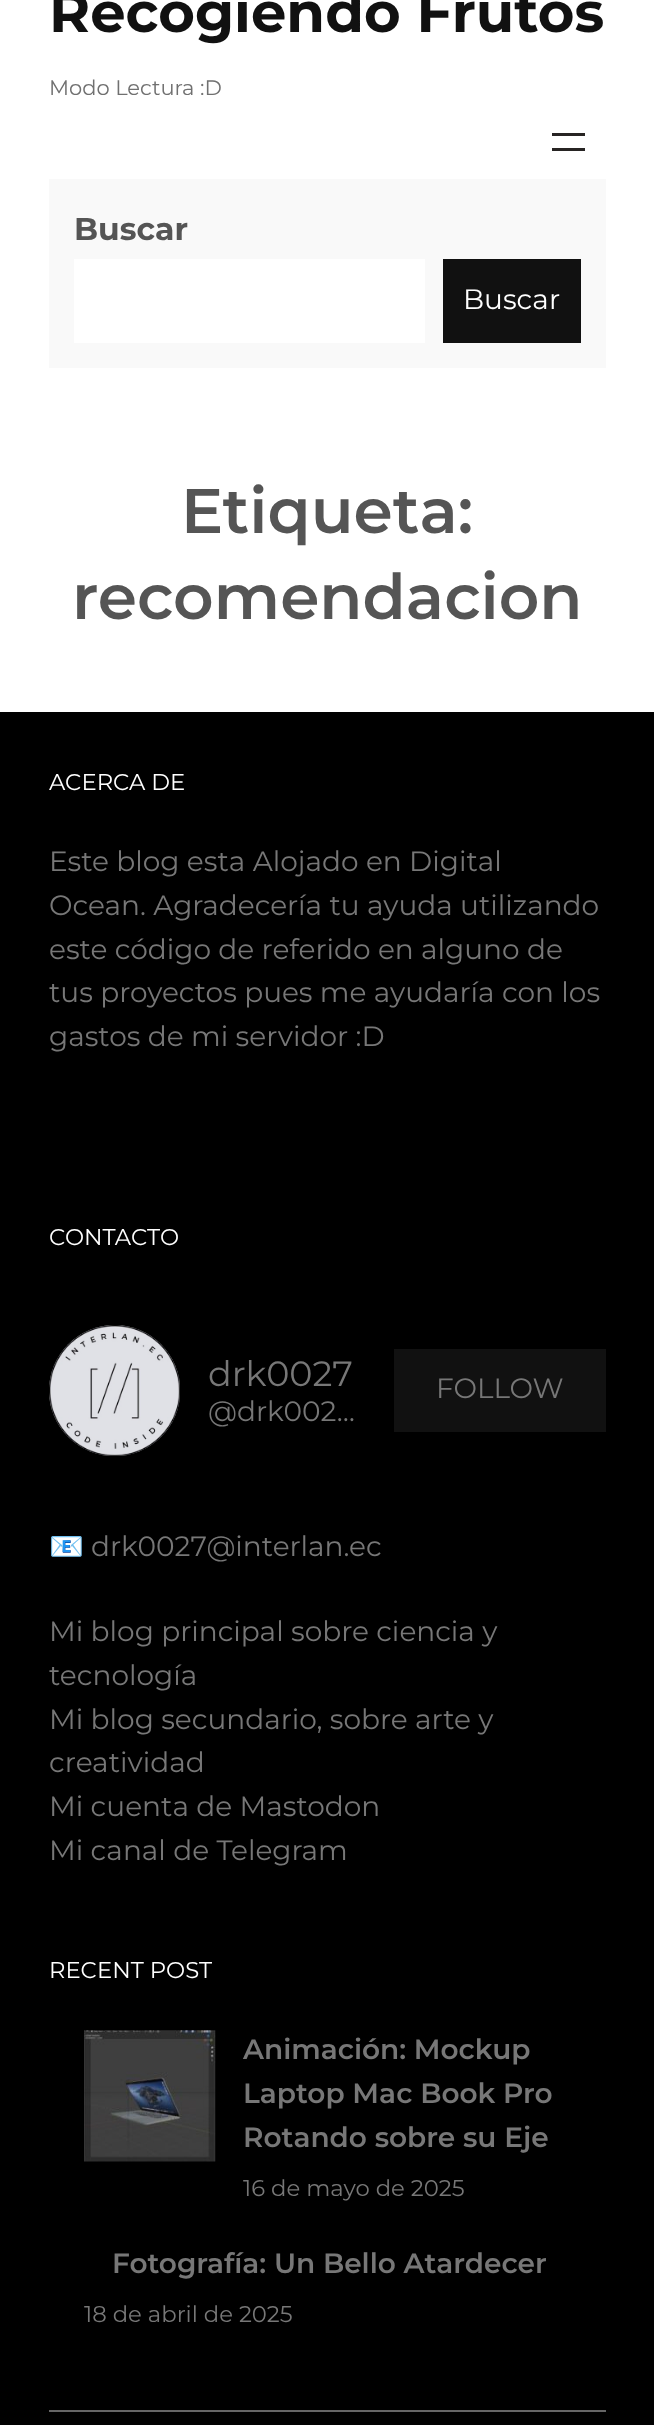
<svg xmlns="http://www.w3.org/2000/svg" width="654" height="2425">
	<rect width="100%" height="100%" fill="#FFFFFF" />
	<text x="49" y="32" font-family="Montserrat" font-size="56" font-weight="700" fill="#111111">Recogiendo Frutos</text>
	<text x="49" y="95" font-family="Montserrat" font-size="21" fill="#707070">Modo Lectura :D</text>
	<rect x="552" y="133" width="33" height="3" fill="#272423" />
	<rect x="552" y="148" width="33" height="3" fill="#272423" />
	<rect x="49" y="179" width="557" height="189" fill="#F9F9F9" />
	<text x="74" y="240" font-family="Montserrat" font-size="31.5" font-weight="700" fill="#555555">Buscar</text>
	<rect x="74" y="259" width="351" height="84" fill="#FFFFFF" />
	<rect x="443" y="259" width="138" height="84" fill="#111111" />
	<text x="463" y="309" font-family="Montserrat" font-size="28" fill="#FFFFFF">Buscar</text>
	<g font-family="Montserrat" font-size="63" font-weight="600" fill="#555555">
		<text x="181" y="533">Etiqueta:</text>
		<text x="72" y="619">recomendacion</text>
	</g>
	<rect x="0" y="712" width="654" height="1698" fill="#000000" />
	<text x="49" y="790" font-family="Montserrat" font-size="22.75" fill="#FFFFFF">ACERCA DE</text>
	<g font-family="Montserrat" font-size="28" fill="#777777">
		<text x="49" y="871">Este blog esta Alojado en Digital</text>
		<text x="49" y="915">Ocean. Agradecería tu ayuda utilizando</text>
		<text x="49" y="959">este código de referido en alguno de</text>
		<text x="49" y="1002">tus proyectos pues me ayudaría con los</text>
		<text x="49" y="1046">gastos de mi servidor :D</text>
	</g>
	<text x="49" y="1245" font-family="Montserrat" font-size="22.75" fill="#FFFFFF">CONTACTO</text>
	<image x="49" y="1325" width="131" height="131" href="assets/img1.png" />
	<text x="208" y="1386" font-family="Montserrat" font-size="35" fill="#777777">drk0027</text>
	<text x="208" y="1421" font-family="Montserrat" font-size="28" fill="#777777">@drk002…</text>
	<rect x="394" y="1349" width="212" height="83" fill="#111111" />
	<text x="436" y="1398" font-family="Montserrat" font-size="28" fill="#777777">FOLLOW</text>
	<text x="49" y="1556" font-family="Noto Color Emoji" font-size="28" fill="#777777">📧</text>
	<g font-family="Montserrat" font-size="28" fill="#777777">
		<text x="91" y="1556">drk0027@interlan.ec</text>
		<text x="49" y="1641">Mi blog principal sobre ciencia y</text>
		<text x="49" y="1685">tecnología</text>
		<text x="49" y="1729">Mi blog secundario, sobre arte y</text>
		<text x="49" y="1772">creatividad</text>
		<text x="49" y="1816">Mi cuenta de Mastodon</text>
		<text x="49" y="1860">Mi canal de Telegram</text>
	</g>
	<text x="49" y="1978" font-family="Montserrat" font-size="22.75" fill="#FFFFFF">RECENT POST</text>
	<image x="84" y="2030" width="132" height="132" href="assets/img2.png" />
	<g font-family="Montserrat" font-size="28" font-weight="600" fill="#777777">
		<text x="243" y="2059">Animación: Mockup</text>
		<text x="243" y="2103">Laptop Mac Book Pro</text>
		<text x="243" y="2147">Rotando sobre su Eje</text>
	</g>
	<text x="243" y="2196" font-family="Montserrat" font-size="22.75" fill="#777777">16 de mayo de 2025</text>
	<text x="112" y="2273" font-family="Montserrat" font-size="28" font-weight="600" fill="#777777">Fotografía: Un Bello Atardecer</text>
	<text x="84" y="2322" font-family="Montserrat" font-size="22.75" fill="#777777">18 de abril de 2025</text>
	<rect x="0" y="2410" width="654" height="15" fill="#010101" />
	<rect x="49" y="2410" width="557" height="2" fill="#666666" />
</svg>
